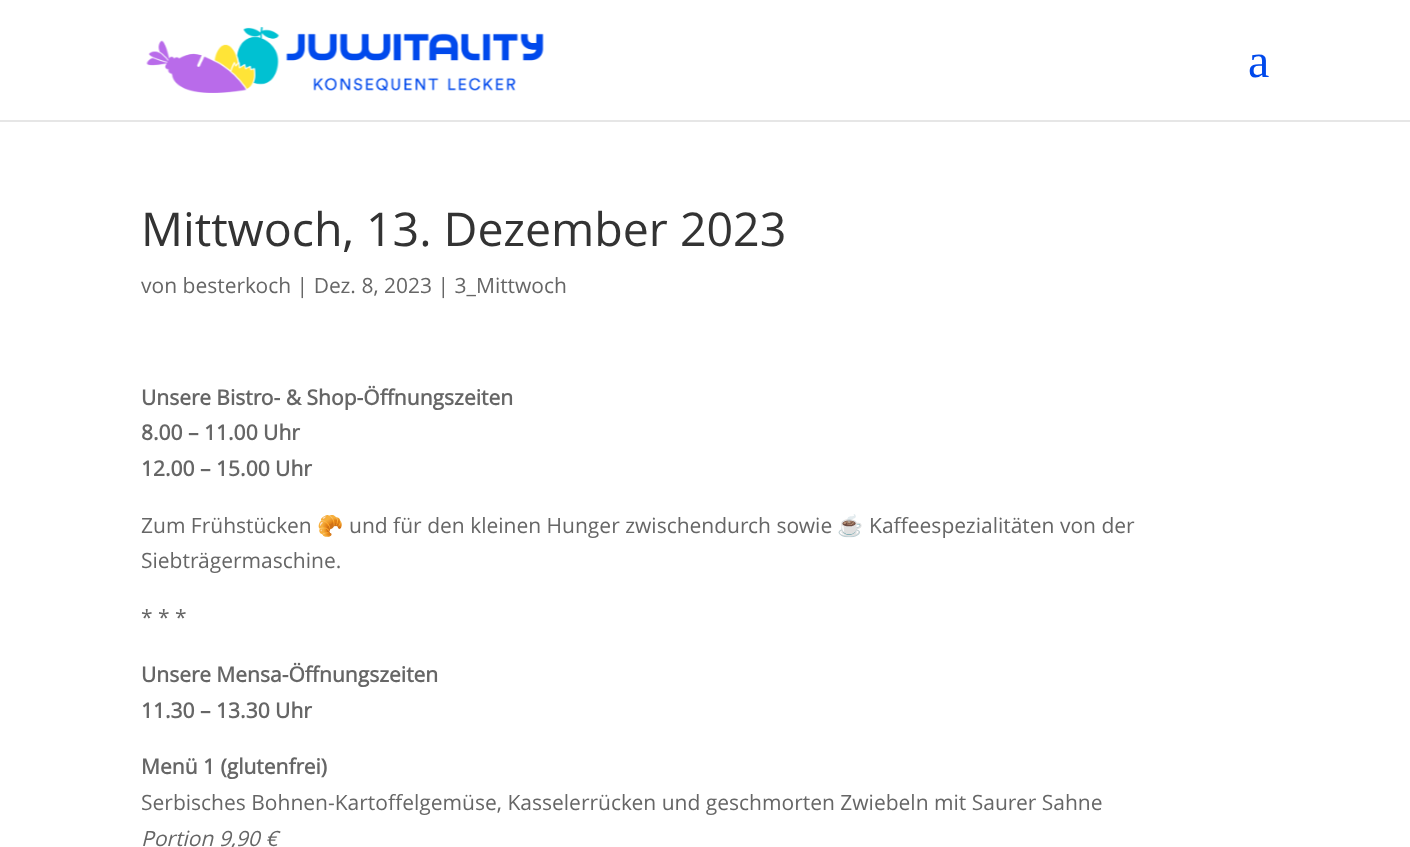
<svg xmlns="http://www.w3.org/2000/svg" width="1410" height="847">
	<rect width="100%" height="100%" fill="#FFFFFF" />
	<rect x="0" y="120" width="1410" height="2" fill="#E6E6E6" />
	<image x="146" y="27" width="398" height="66" href="assets/img1.png" />
	<text x="1248" y="77" font-family="Liberation Serif" font-size="48" fill="#0049EC">a</text>
	<text x="141" y="246" font-family="Open Sans" font-size="46.5" fill="#333333">Mittwoch, 13. Dezember 2023</text>
	<text x="141" y="293" font-family="Open Sans" font-size="21" fill="#666666">von besterkoch | Dez. 8, 2023 | 3_Mittwoch</text>
	<g font-family="Open Sans" font-size="21" font-weight="700" fill="#666666">
		<text x="141" y="405">Unsere Bistro- &amp; Shop-Öffnungszeiten</text>
		<text x="141" y="440">8.00 – 11.00 Uhr</text>
		<text x="141" y="476">12.00 – 15.00 Uhr</text>
	</g>
	<text x="141" y="533" font-family="Open Sans" font-size="21" fill="#666666">Zum Frühstücken</text>
	<text x="317" y="533" font-family="Noto Color Emoji" font-size="21" fill="#666666">🥐</text>
	<text x="349" y="533" font-family="Open Sans" font-size="21" fill="#666666">und für den kleinen Hunger zwischendurch sowie</text>
	<text x="837" y="533" font-family="Noto Color Emoji" font-size="21" fill="#666666">☕</text>
	<g font-family="Open Sans" font-size="21" fill="#666666">
		<text x="869" y="533">Kaffeespezialitäten von der</text>
		<text x="141" y="568">Siebträgermaschine.</text>
		<text x="141" y="625">* * *</text>
	</g>
	<g font-family="Open Sans" font-size="21" font-weight="700" fill="#666666">
		<text x="141" y="682">Unsere Mensa-Öffnungszeiten</text>
		<text x="141" y="718">11.30 – 13.30 Uhr</text>
		<text x="141" y="774">Menü 1 (glutenfrei)</text>
	</g>
	<text x="141" y="810" font-family="Open Sans" font-size="21" fill="#666666">Serbisches Bohnen-Kartoffelgemüse, Kasselerrücken und geschmorten Zwiebeln mit Saurer Sahne</text>
	<text x="141" y="846" font-family="Open Sans" font-size="21" font-style="italic" fill="#666666">Portion 9,90 €</text>
</svg>
